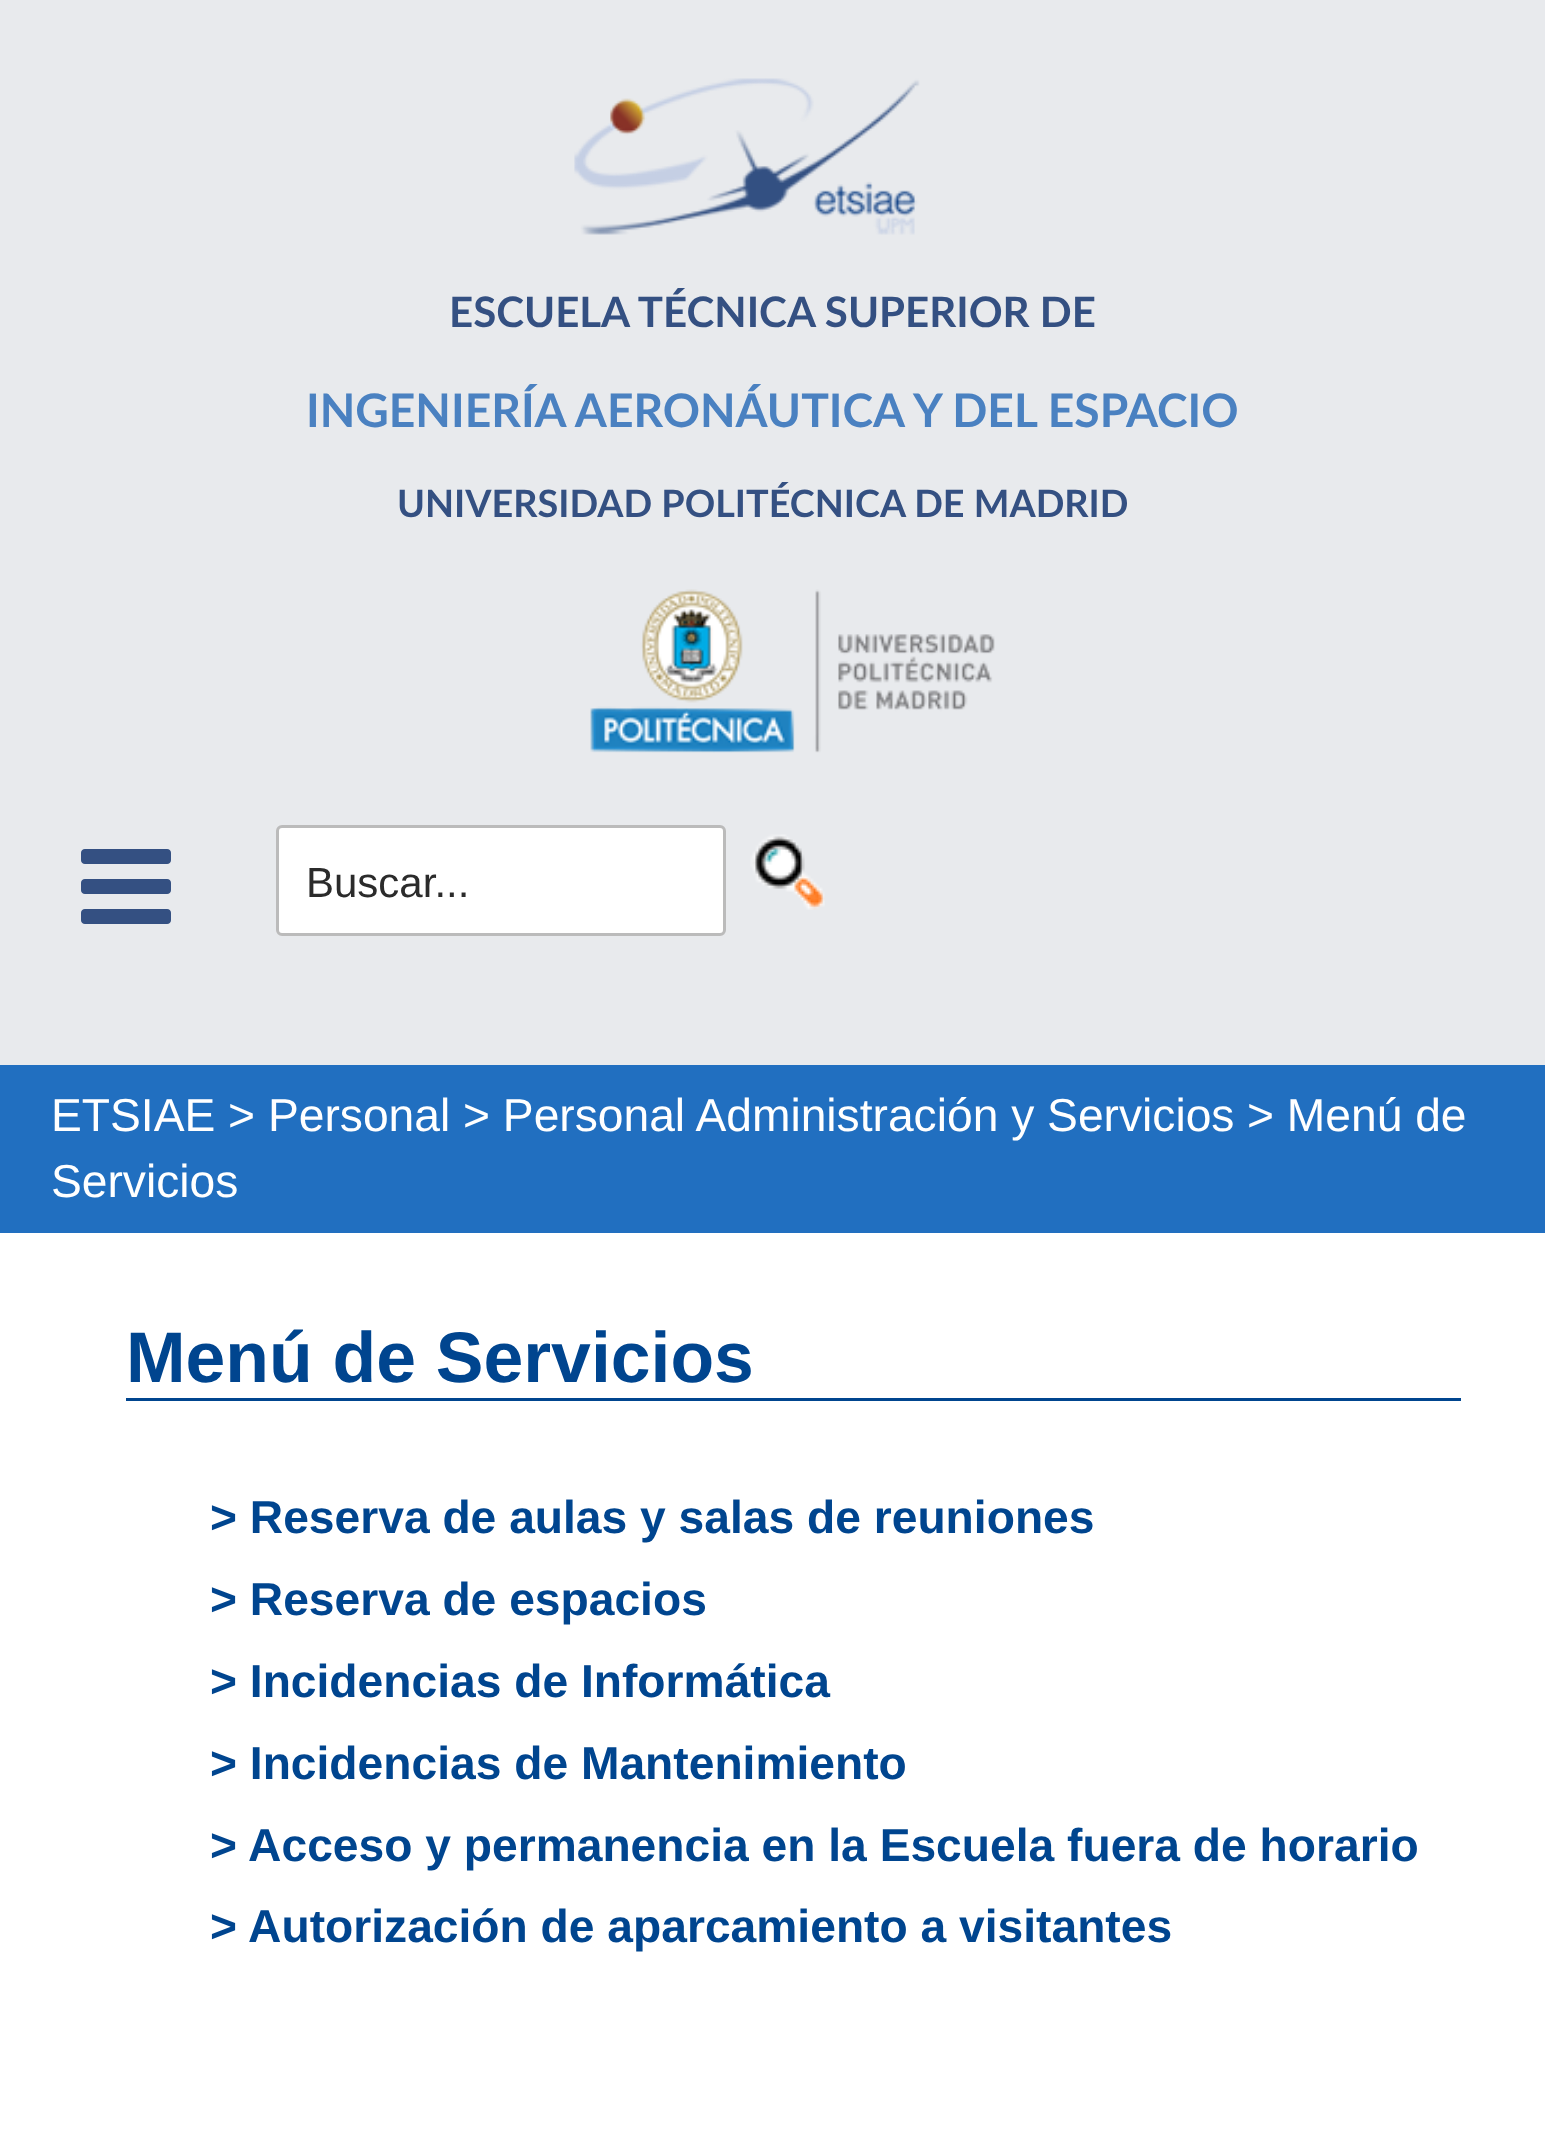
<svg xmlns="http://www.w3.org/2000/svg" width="1545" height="2150">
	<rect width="100%" height="100%" fill="#FFFFFF" />
	<rect x="0" y="0" width="1545" height="1065" fill="#E8EAED" />
	<image x="574" y="78" width="346" height="157" href="assets/img1.png" />
	<text x="449" y="327" font-family="Lato" font-size="42" font-weight="700" fill="#345082">ESCUELA TÉCNICA SUPERIOR DE</text>
	<text x="306" y="427" font-family="Lato" font-size="46.2" font-weight="700" fill="#4A81C1">INGENIERÍA AERONÁUTICA Y DEL ESPACIO</text>
	<text x="397" y="517" font-family="Lato" font-size="37.75" font-weight="700" fill="#345082">UNIVERSIDAD POLITÉCNICA DE MADRID</text>
	<image x="590" y="589" width="405" height="164" href="assets/img2.png" />
	<image x="81" y="849" width="90" height="75" href="assets/img3.png" />
	<rect x="277.5" y="826.5" width="447" height="108" rx="4.5" fill="#FFFFFF" stroke="#BBBBBB" stroke-width="3" />
	<text x="306" y="897" font-family="Liberation Sans" font-size="42" fill="#2B2B2B">Buscar...</text>
	<image x="750" y="834" width="75" height="76" href="assets/img4.png" />
	<rect x="0" y="1065" width="1545" height="168" fill="#216FC0" />
	<g font-family="Liberation Sans" font-size="46.2" fill="#FFFFFF">
		<text x="51" y="1131">ETSIAE &gt; Personal &gt; Personal Administración y Servicios</text>
		<text x="1247" y="1131">&gt; Menú de</text>
		<text x="51" y="1197">Servicios</text>
	</g>
	<rect x="126" y="1398" width="1335" height="3" fill="#00458F" />
	<text x="126" y="1382" font-family="Liberation Sans" font-size="71.5" font-weight="700" fill="#00458F">Menú de Servicios</text>
	<g font-family="Liberation Sans" font-size="46.2" font-weight="700" fill="#00458F">
		<text x="210" y="1533">&gt; Reserva de aulas y salas de reuniones</text>
		<text x="210" y="1615">&gt; Reserva de espacios</text>
		<text x="210" y="1697">&gt; Incidencias de Informática</text>
		<text x="210" y="1779">&gt; Incidencias de Mantenimiento</text>
		<text x="210" y="1861">&gt; Acceso y permanencia en la Escuela fuera de horario</text>
		<text x="210" y="1942">&gt; Autorización de aparcamiento a visitantes</text>
	</g>
</svg>
